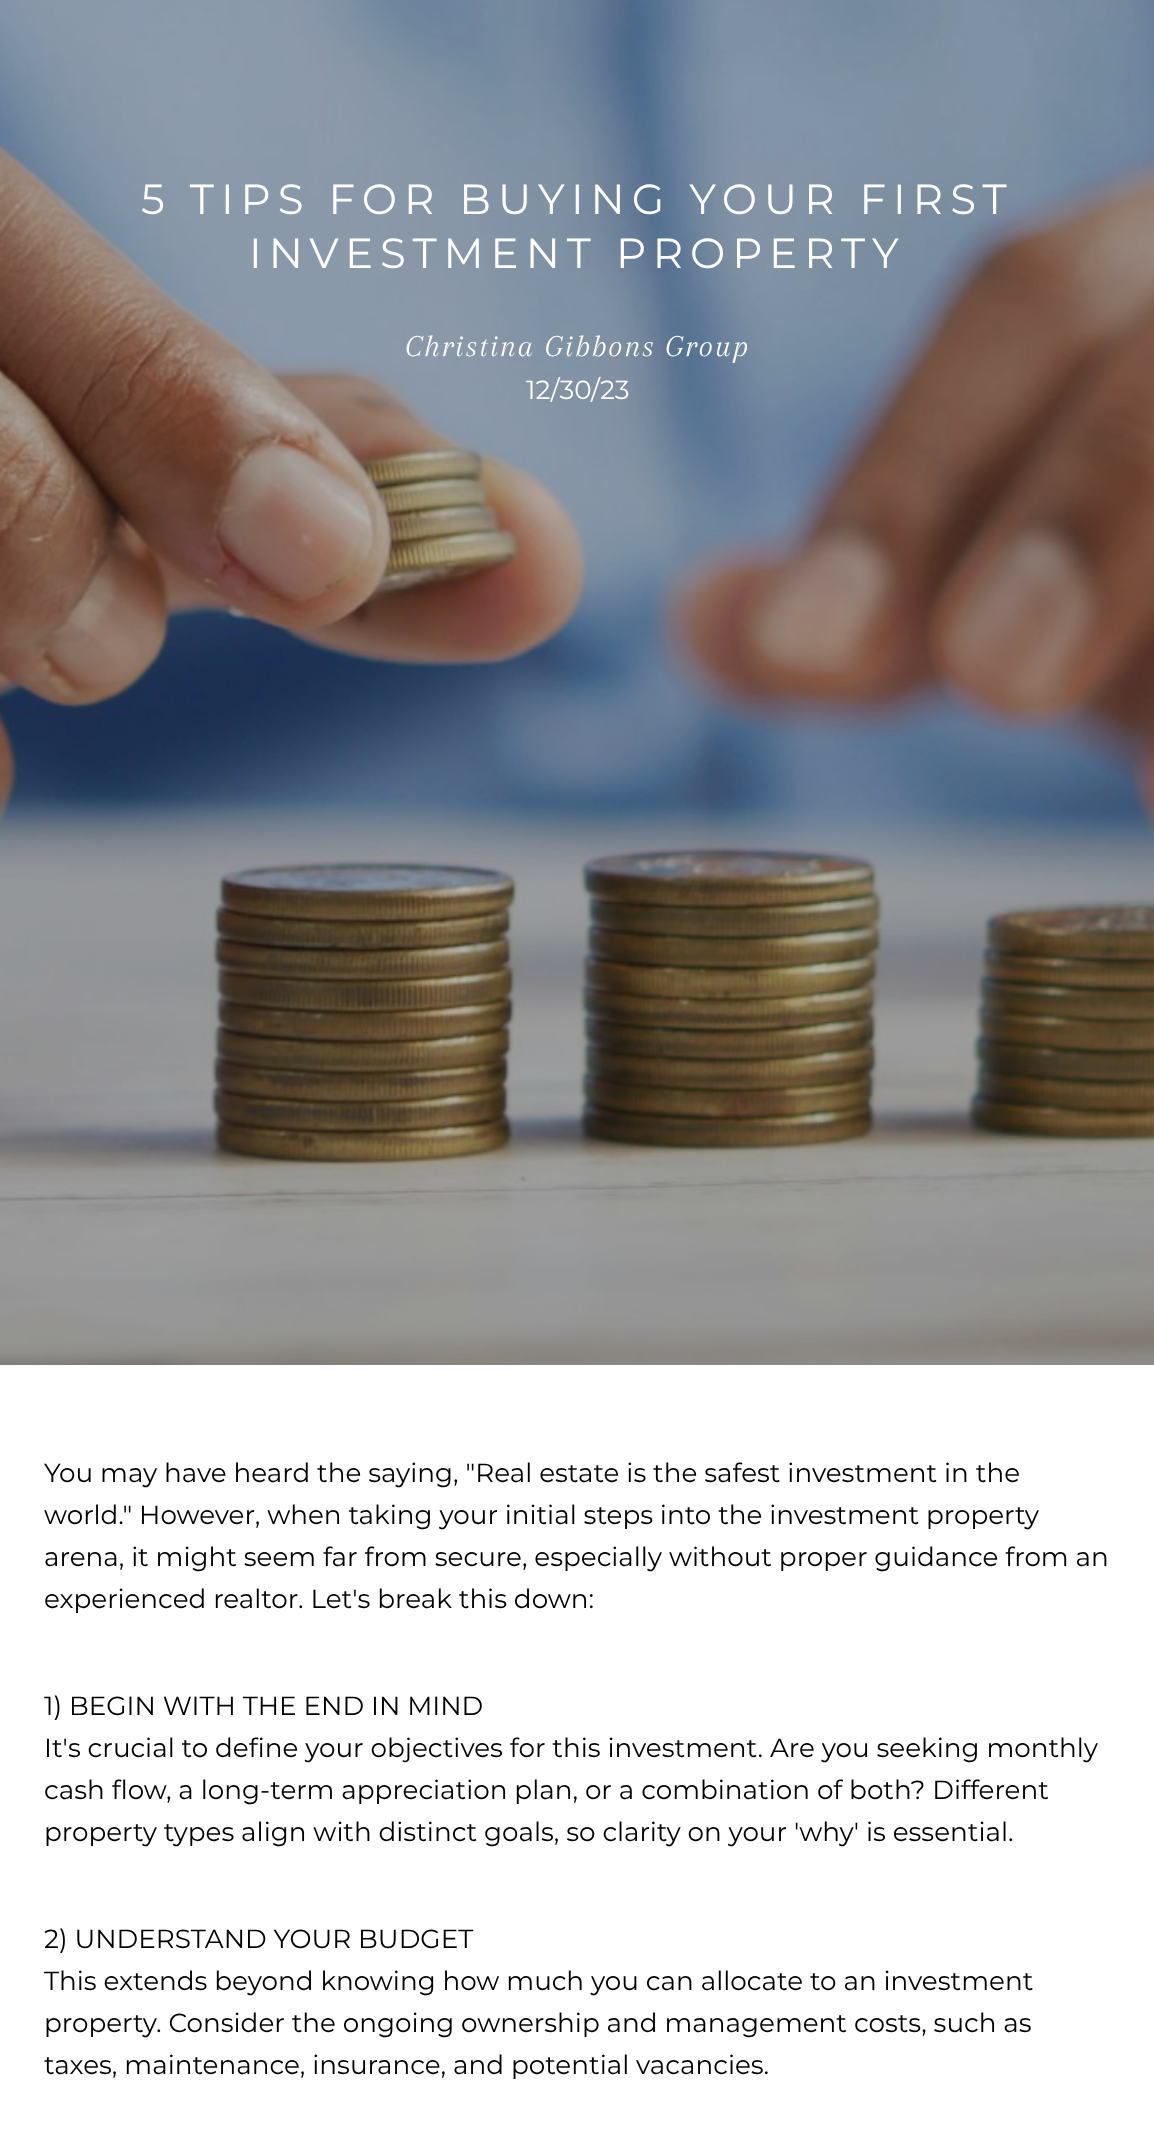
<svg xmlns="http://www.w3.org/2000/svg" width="1154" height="2146">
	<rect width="100%" height="100%" fill="#FFFFFF" />
	<image x="0" y="0" width="1154" height="1365" href="assets/img1.png" />
	<g font-family="Montserrat" font-size="42" letter-spacing="7" fill="#FFFFFF">
		<text x="141" y="214">5 TIPS FOR BUYING YOUR FIRST</text>
		<text x="249" y="268">INVESTMENT PROPERTY</text>
	</g>
	<text x="405" y="356" font-family="Arapey" font-size="31.5" font-style="italic" letter-spacing="1.75" fill="#FFFFFF">Christina Gibbons Group</text>
	<text x="526" y="399" font-family="Montserrat" font-size="26.25" fill="#FFFFFF">12/30/23</text>
	<g font-family="Montserrat" font-size="26.25" fill="#000000">
		<text x="44" y="1482">You may have heard the saying, "Real estate is the safest investment in the</text>
		<text x="44" y="1524">world." However, when taking your initial steps into the investment property</text>
		<text x="44" y="1566">arena, it might seem far from secure, especially without proper guidance from an</text>
		<text x="44" y="1608">experienced realtor. Let's break this down:</text>
		<text x="44" y="1715">1) BEGIN WITH THE END IN MIND</text>
		<text x="44" y="1757">It's crucial to define your objectives for this investment. Are you seeking monthly</text>
		<text x="44" y="1799">cash flow, a long-term appreciation plan, or a combination of both? Different</text>
		<text x="44" y="1841">property types align with distinct goals, so clarity on your 'why' is essential.</text>
		<text x="44" y="1948">2) UNDERSTAND YOUR BUDGET</text>
		<text x="44" y="1990">This extends beyond knowing how much you can allocate to an investment</text>
		<text x="44" y="2032">property. Consider the ongoing ownership and management costs, such as</text>
		<text x="44" y="2074">taxes, maintenance, insurance, and potential vacancies.</text>
	</g>
</svg>
